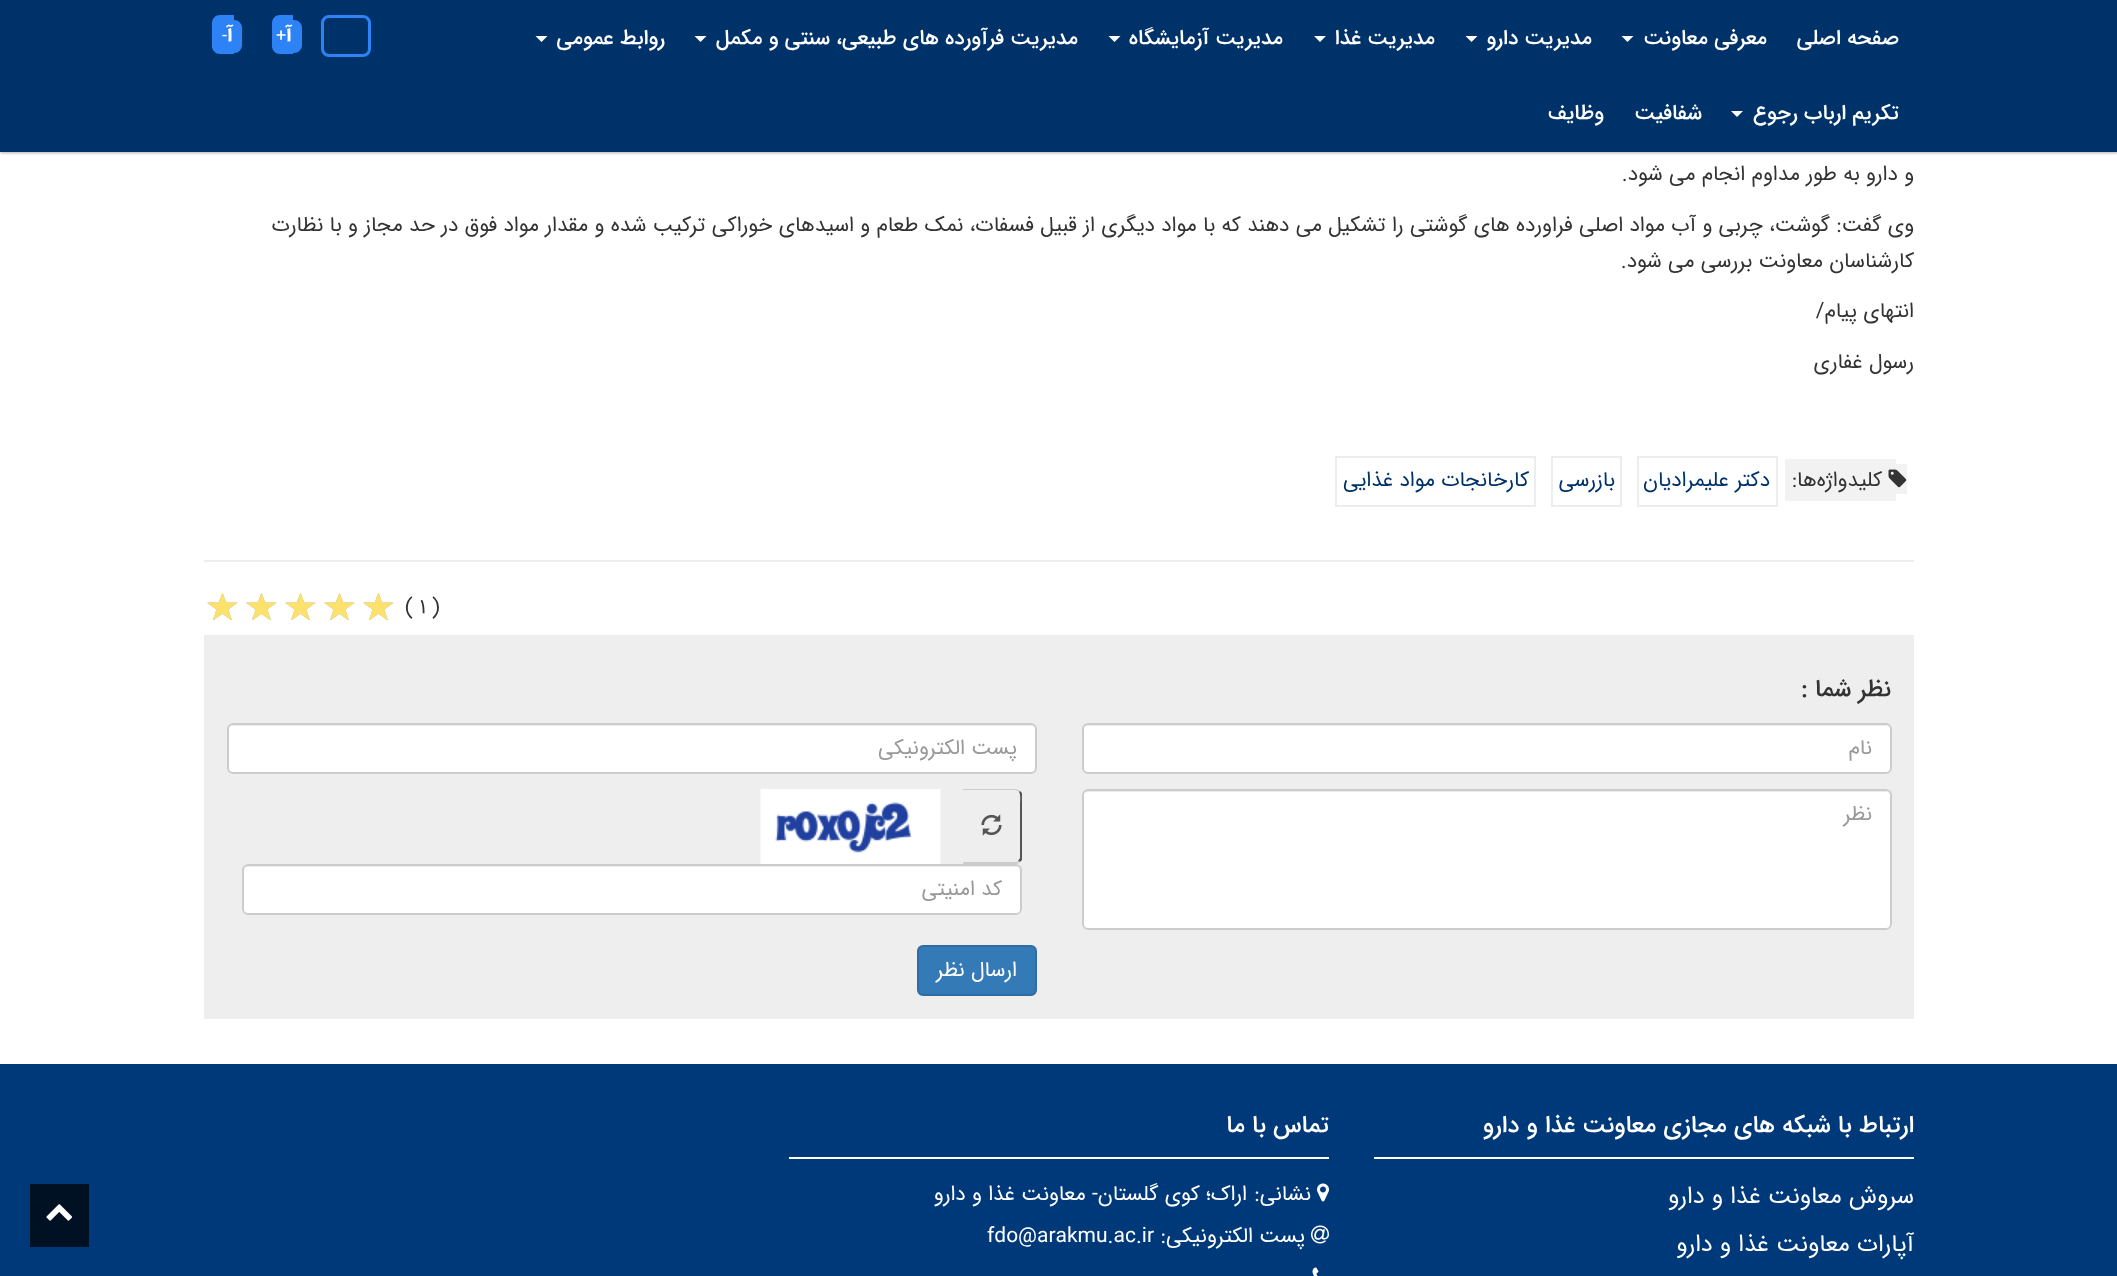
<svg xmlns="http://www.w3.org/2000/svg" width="2117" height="1276">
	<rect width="100%" height="100%" fill="#FFFFFF" />
	<rect x="0" y="2" width="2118" height="151" fill="#000000" fill-opacity="0.3" filter="blur(1.5px)" />
	<rect x="0" y="0" width="2117" height="152" fill="#00326A" />
	<g font-family="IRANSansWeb" font-size="21" font-weight="500" direction="rtl" fill="#FFFFFF">
		<text x="1899" y="44">صفحه اصلی</text>
		<text x="1767" y="44">معرفی معاونت</text>
	</g>
	<path d="M1621.5 36H1633.5L1627.5 42Z" fill="#FFFFFF" />
	<text x="1592" y="44" font-family="IRANSansWeb" font-size="21" font-weight="500" direction="rtl" fill="#FFFFFF">مدیریت دارو</text>
	<path d="M1465.5 36H1477.5L1471.5 42Z" fill="#FFFFFF" />
	<text x="1435" y="44" font-family="IRANSansWeb" font-size="21" font-weight="500" direction="rtl" fill="#FFFFFF">مدیریت غذا</text>
	<path d="M1314 36H1326L1320 42Z" fill="#FFFFFF" />
	<text x="1283" y="44" font-family="IRANSansWeb" font-size="21" font-weight="500" direction="rtl" fill="#FFFFFF">مدیریت آزمایشگاه</text>
	<path d="M1108.5 36H1120.5L1114.5 42Z" fill="#FFFFFF" />
	<text x="1078" y="44" font-family="IRANSansWeb" font-size="21" font-weight="500" direction="rtl" fill="#FFFFFF">مدیریت فرآورده های طبیعی، سنتی و مکمل</text>
	<path d="M694.5 36H706.5L700.5 42Z" fill="#FFFFFF" />
	<text x="665" y="44" font-family="IRANSansWeb" font-size="21" font-weight="500" direction="rtl" fill="#FFFFFF">روابط عمومی</text>
	<path d="M535.5 36H547.5L541.5 42Z" fill="#FFFFFF" />
	<text x="1899" y="119" font-family="IRANSansWeb" font-size="21" font-weight="500" direction="rtl" fill="#FFFFFF">تکریم ارباب رجوع</text>
	<path d="M1731 111H1743L1737 117Z" fill="#FFFFFF" />
	<g font-family="IRANSansWeb" font-size="21" font-weight="500" direction="rtl" fill="#FFFFFF">
		<text x="1702" y="119">شفافیت</text>
		<text x="1604" y="119">وظایف</text>
	</g>
	<rect x="322.5" y="16.5" width="47" height="39" rx="6.5" fill="none" stroke="#2D82F6" stroke-width="3" />
	<path d="M280 15H293V54H280C275.5 54 272 50.5 272 46V23C272 18.5 275.5 15 280 15Z" fill="#2D82F6" />
	<path d="M276 20H294C298.5 20 302 23.5 302 28V45C302 49.5 298.5 53 294 53H276Z" fill="#2D82F6" />
	<text x="292" y="41" font-family="IRANSansWeb" font-size="21" font-weight="700" direction="rtl" fill="#FFFFFF">آ</text>
	<text x="276" y="41" font-family="IRANSansWeb" font-size="18" fill="#FFFFFF">+</text>
	<path d="M220 15H234V54H220C215.5 54 212 50.5 212 46V23C212 18.5 215.5 15 220 15Z" fill="#2D82F6" />
	<path d="M222 20H234C238.5 20 242 23.5 242 28V45C242 49.5 238.5 53 234 53H222Z" fill="#2D82F6" />
	<text x="233" y="41" font-family="IRANSansWeb" font-size="21" font-weight="700" direction="rtl" fill="#FFFFFF">آ</text>
	<text x="222" y="41" font-family="IRANSansWeb" font-size="18" fill="#FFFFFF">-</text>
	<g font-family="IRANSansWeb" font-size="21" direction="rtl" fill="#333333">
		<text x="1914" y="180">و دارو به طور مداوم انجام می شود.</text>
		<text x="1914" y="231">وی گفت: گوشت، چربی و آب مواد اصلی فراورده های گوشتی را تشکیل می دهند که با مواد دیگری از قبیل فسفات، نمک طعام و اسیدهای خوراکی ترکیب شده و مقدار مواد فوق در حد مجاز و با نظارت</text>
		<text x="1914" y="267">کارشناسان معاونت بررسی می شود.</text>
		<text x="1914" y="317">انتهای پیام/</text>
		<text x="1914" y="368">رسول غفاری</text>
	</g>
	<rect x="1896" y="464" width="11" height="30" fill="#F2F2F2" />
	<rect x="1785" y="459" width="111" height="42" fill="#F2F2F2" />
	<image x="1888" y="469" width="19" height="19" href="assets/img1.png" />
	<text x="1882" y="486" font-family="IRANSansWeb" font-size="21" direction="rtl" fill="#333333">کلیدواژه‌ها:</text>
	<rect x="1638" y="457" width="139" height="49" fill="none" stroke="#EDEDED" stroke-width="2" />
	<text x="1770" y="486" font-family="IRANSansWeb" font-size="21" direction="rtl" fill="#00326A">دکتر علیمرادیان</text>
	<rect x="1552" y="457" width="69" height="49" fill="none" stroke="#EDEDED" stroke-width="2" />
	<text x="1615" y="486" font-family="IRANSansWeb" font-size="21" direction="rtl" fill="#00326A">بازرسی</text>
	<rect x="1336" y="457" width="199" height="49" fill="none" stroke="#EDEDED" stroke-width="2" />
	<text x="1529" y="486" font-family="IRANSansWeb" font-size="21" direction="rtl" fill="#00326A">کارخانجات مواد غذایی</text>
	<rect x="204" y="560" width="1710" height="2" fill="#EEEEEE" />
	<text x="405" y="613" font-family="IRANSansWeb" font-size="21" fill="#333333">( ۱ )</text>
	<image x="363" y="593" width="31" height="28" href="assets/img2.png" />
	<image x="324" y="593" width="31" height="28" href="assets/img2.png" />
	<image x="285" y="593" width="31" height="28" href="assets/img2.png" />
	<image x="246" y="593" width="31" height="28" href="assets/img2.png" />
	<image x="207" y="593" width="31" height="28" href="assets/img2.png" />
	<image x="363" y="593" width="31" height="28" href="assets/img3.png" />
	<image x="324" y="593" width="31" height="28" href="assets/img3.png" />
	<image x="285" y="593" width="31" height="28" href="assets/img3.png" />
	<image x="246" y="593" width="31" height="28" href="assets/img3.png" />
	<image x="207" y="593" width="31" height="28" href="assets/img3.png" />
	<rect x="204" y="635" width="1710" height="384" fill="#EEEEEE" />
	<text x="1891" y="696" font-family="IRANSansWeb" font-size="24" font-weight="500" direction="rtl" fill="#333333">نظر شما :</text>
	<rect x="1082" y="723" width="810" height="51" rx="6" fill="#FFFFFF" />
	<path d="M1088 726H1886C1888 726 1890 728 1890 730C1890 727 1888 725 1885 725H1088C1085 725 1083 727 1083 730C1083 728 1085 726 1088 726Z" fill="#ECECEC" />
	<rect x="1083" y="724" width="808" height="49" rx="5" fill="none" stroke="#CCCCCC" stroke-width="2" />
	<text x="1872" y="754" font-family="IRANSansWeb" font-size="21" direction="rtl" fill="#999999">نام</text>
	<rect x="227" y="723" width="810" height="51" rx="6" fill="#FFFFFF" />
	<path d="M232 726H1030C1033 726 1035 728 1035 730C1035 727 1033 725 1030 725H233C230 725 228 727 228 730C228 728 230 726 232 726Z" fill="#ECECEC" />
	<rect x="228" y="724" width="808" height="49" rx="5" fill="none" stroke="#CCCCCC" stroke-width="2" />
	<text x="1017" y="754" font-family="IRANSansWeb" font-size="21" direction="rtl" fill="#999999">پست الکترونیکی</text>
	<rect x="1082" y="789" width="810" height="141" rx="6" fill="#FFFFFF" />
	<path d="M1088 792H1886C1888 792 1890 794 1890 796C1890 793 1888 791 1885 791H1088C1085 791 1083 793 1083 796C1083 794 1085 792 1088 792Z" fill="#ECECEC" />
	<rect x="1083" y="790" width="808" height="139" rx="5" fill="none" stroke="#CCCCCC" stroke-width="2" />
	<text x="1872" y="820" font-family="IRANSansWeb" font-size="21" direction="rtl" fill="#999999">نظر</text>
	<path d="M963 789V790H1016L1019 792L1020 791C1019 790 1017 789 1016 789Z" fill="#CCCCCC" />
	<path d="M1018 861L1020 858V806C1020 802 1021 795 1019 792L1020 791L1022 793V860L1020 862Z" fill="#555555" />
	<path d="M963 862V864H1016C1017 864 1019 863 1020 862L1018 861L1016 862Z" fill="#CCCCCC" />
	<image x="981" y="814" width="21" height="22" href="assets/img4.png" />
	<image x="760" y="789" width="181" height="75" href="assets/img5.png" />
	<rect x="242" y="864" width="780" height="51" rx="6" fill="#FFFFFF" />
	<path d="M248 867H1016C1018 867 1020 869 1020 872V871C1020 868 1018 866 1015 866H248C245 866 243 868 243 871V872C243 869 245 867 248 867Z" fill="#ECECEC" />
	<rect x="243" y="865" width="778" height="49" rx="5" fill="none" stroke="#CCCCCC" stroke-width="2" />
	<text x="1002" y="895" font-family="IRANSansWeb" font-size="21" direction="rtl" fill="#999999">کد امنیتی</text>
	<rect x="918" y="946" width="118" height="49" rx="5" fill="#337AB7" stroke="#2E6DA4" stroke-width="2" />
	<text x="1017" y="976" font-family="IRANSansWeb" font-size="21" direction="rtl" fill="#FFFFFF">ارسال نظر</text>
	<rect x="0" y="1064" width="2117" height="212" fill="#003979" />
	<rect x="1374" y="1157" width="540" height="2" fill="#FFFFFF" />
	<text x="1914" y="1132" font-family="IRANSansWeb" font-size="24" font-weight="500" direction="rtl" fill="#FFFFFF">ارتباط با شبکه های مجازی معاونت غذا و دارو</text>
	<g font-family="IRANSansWeb" font-size="24" direction="rtl" fill="#FFFFFF">
		<text x="1914" y="1203">سروش معاونت غذا و دارو</text>
		<text x="1914" y="1251">آپارات معاونت غذا و دارو</text>
	</g>
	<rect x="789" y="1157" width="540" height="2" fill="#FFFFFF" />
	<text x="1329" y="1132" font-family="IRANSansWeb" font-size="24" font-weight="500" direction="rtl" fill="#FFFFFF">تماس با ما</text>
	<image x="1317" y="1183" width="12" height="19" href="assets/img6.png" />
	<g font-family="IRANSansWeb" font-size="21" direction="rtl" fill="#FFFFFF">
		<text x="1311" y="1200">نشانی:</text>
		<text x="1247" y="1200">اراک؛ کوی گلستان- معاونت غذا و دارو</text>
	</g>
	<image x="1311" y="1225" width="18" height="19" href="assets/img7.png" />
	<text x="1305" y="1242" font-family="IRANSansWeb" font-size="21" direction="rtl" fill="#FFFFFF">پست الکترونیکی:</text>
	<text x="987" y="1242" font-family="IRANSansWeb" font-size="21" fill="#FFFFFF">fdo@arakmu.ac.ir</text>
	<image x="1312" y="1267" width="7" height="9" href="assets/img8.png" />
	<rect x="30" y="1184" width="59" height="63" fill="#001124" />
	<image x="46" y="1204" width="26" height="17" href="assets/img9.png" />
</svg>
